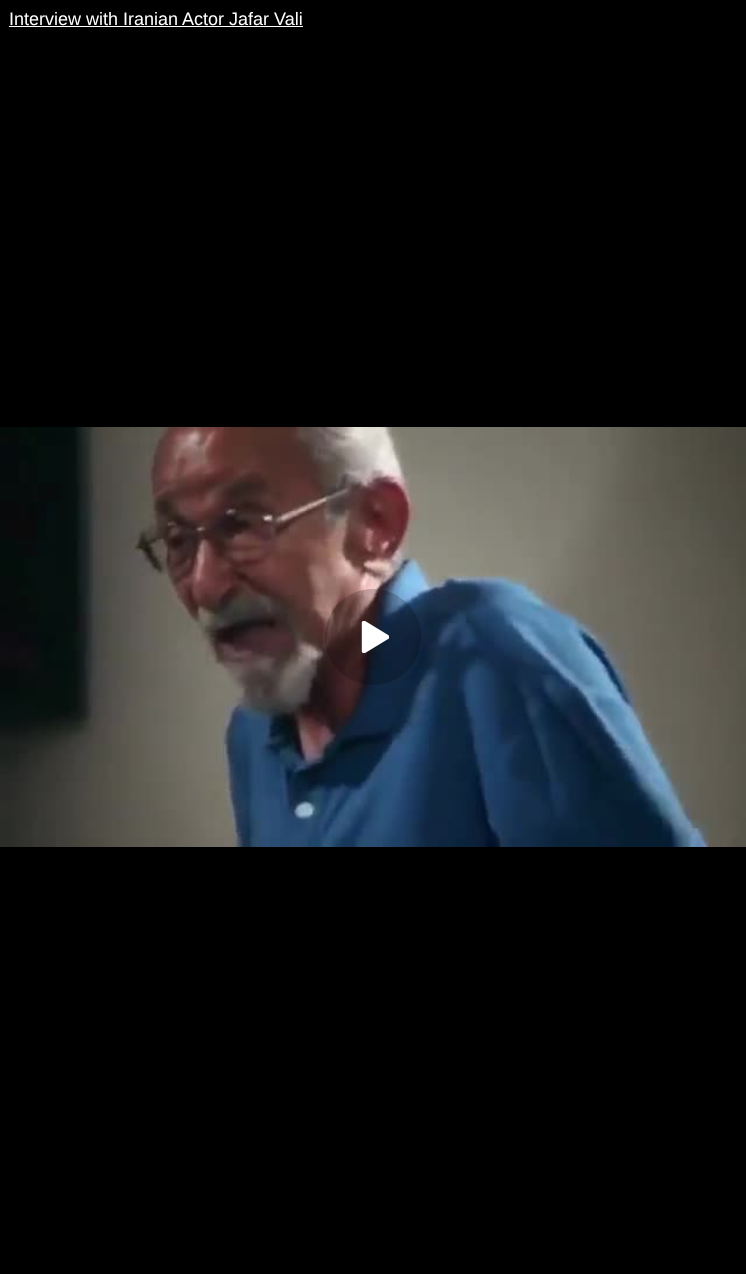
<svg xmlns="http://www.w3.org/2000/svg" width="746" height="1274">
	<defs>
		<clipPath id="clip1"><rect x="357" y="621" width="32" height="32" /></clipPath>
	</defs>
	<rect width="100%" height="100%" fill="#000000" />
	<text x="9" y="25" font-family="Liberation Sans" font-size="18" fill="#FFFFFF">Interview with Iranian Actor Jafar Vali</text>
	<rect x="9" y="26" width="294" height="1" fill="#FFFFFF" />
	<image x="0" y="427" width="746" height="420" href="assets/img1.png" />
	<circle cx="373" cy="637" r="48" fill="#000000" fill-opacity="0.2" />
	<path d="M387 637L364 623V651Z" fill="#FFFFFF" />
	<g clip-path="url(#clip1)">
		<path d="M387 637L364 623V651Z" fill="none" stroke="#FFFFFF" stroke-width="4.4" stroke-linejoin="round" />
	</g>
</svg>
